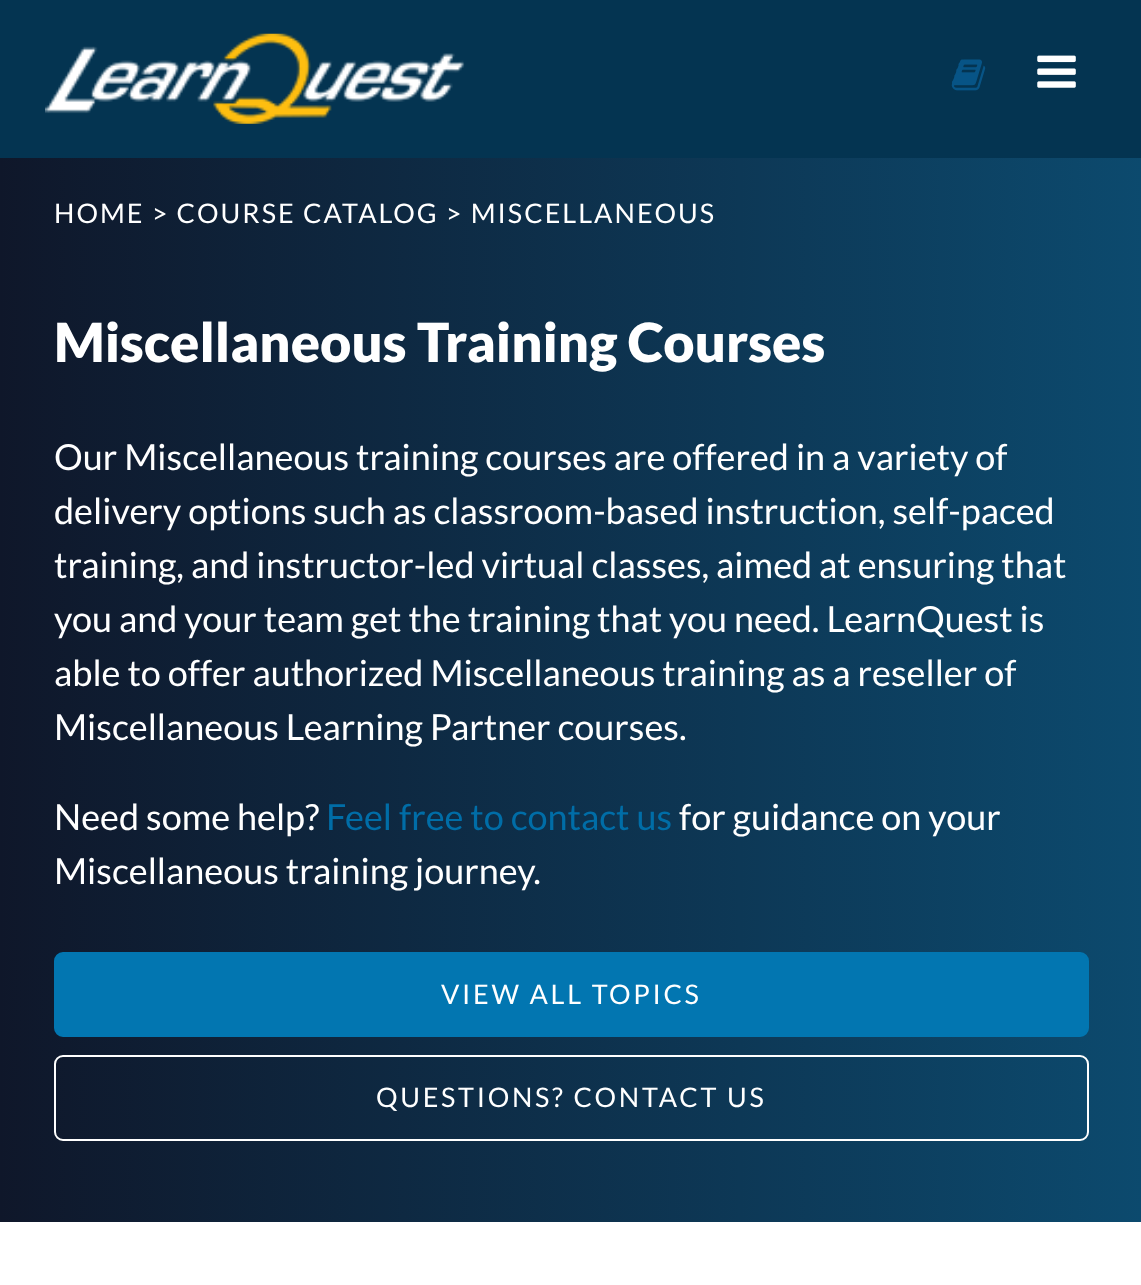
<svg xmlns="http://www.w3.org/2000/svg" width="1141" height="1285">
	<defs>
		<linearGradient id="g1" gradientUnits="userSpaceOnUse" x1="0" y1="690" x2="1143" y2="690"><stop offset="0" stop-color="#0F172A" /><stop offset="1" stop-color="#0C4A6E" /></linearGradient>
	</defs>
	<rect width="100%" height="100%" fill="#FFFFFF" />
	<rect x="0" y="0" width="1141" height="158" fill="#043451" />
	<image x="45" y="33" width="420" height="91" href="assets/img1.png" />
	<image x="951" y="59" width="35" height="32" href="assets/img2.png" />
	<image x="1037" y="55" width="39" height="33" href="assets/img3.png" />
	<rect x="0" y="158" width="1141" height="1064" fill="url(#g1)" />
	<text x="54" y="223" font-family="Lato" font-size="27" letter-spacing="2" fill="#FFFFFF">HOME &gt; COURSE CATALOG &gt; MISCELLANEOUS</text>
	<text x="54" y="362" font-family="Lato" font-size="54" font-weight="900" fill="#FFFFFF">Miscellaneous Training Courses</text>
	<g font-family="Lato" font-size="36" fill="#FFFFFF">
		<text x="54" y="470">Our Miscellaneous training courses are offered in a variety of</text>
		<text x="54" y="524">delivery options such as classroom-based instruction, self-paced</text>
		<text x="54" y="578">training, and instructor-led virtual classes, aimed at ensuring that</text>
		<text x="54" y="632">you and your team get the training that you need. LearnQuest is</text>
		<text x="54" y="686">able to offer authorized Miscellaneous training as a reseller of</text>
		<text x="54" y="740">Miscellaneous Learning Partner courses.</text>
		<text x="54" y="830">Need some help?</text>
	</g>
	<text x="326" y="830" font-family="Lato" font-size="36" fill="#006DA7">Feel free to contact us</text>
	<g font-family="Lato" font-size="36" fill="#FFFFFF">
		<text x="679" y="830">for guidance on your</text>
		<text x="54" y="884">Miscellaneous training journey.</text>
	</g>
	<rect x="55" y="953" width="1033" height="83" rx="8" fill="#0276B1" stroke="#0276B1" stroke-width="2" />
	<text x="441" y="1004" font-family="Lato" font-size="27" letter-spacing="2.7" fill="#FFFFFF">VIEW ALL TOPICS</text>
	<rect x="55" y="1056" width="1033" height="84" rx="8" fill="none" stroke="#FFFFFF" stroke-width="2" />
	<text x="376" y="1107" font-family="Lato" font-size="27" letter-spacing="2.7" fill="#FFFFFF">QUESTIONS? CONTACT US</text>
</svg>
